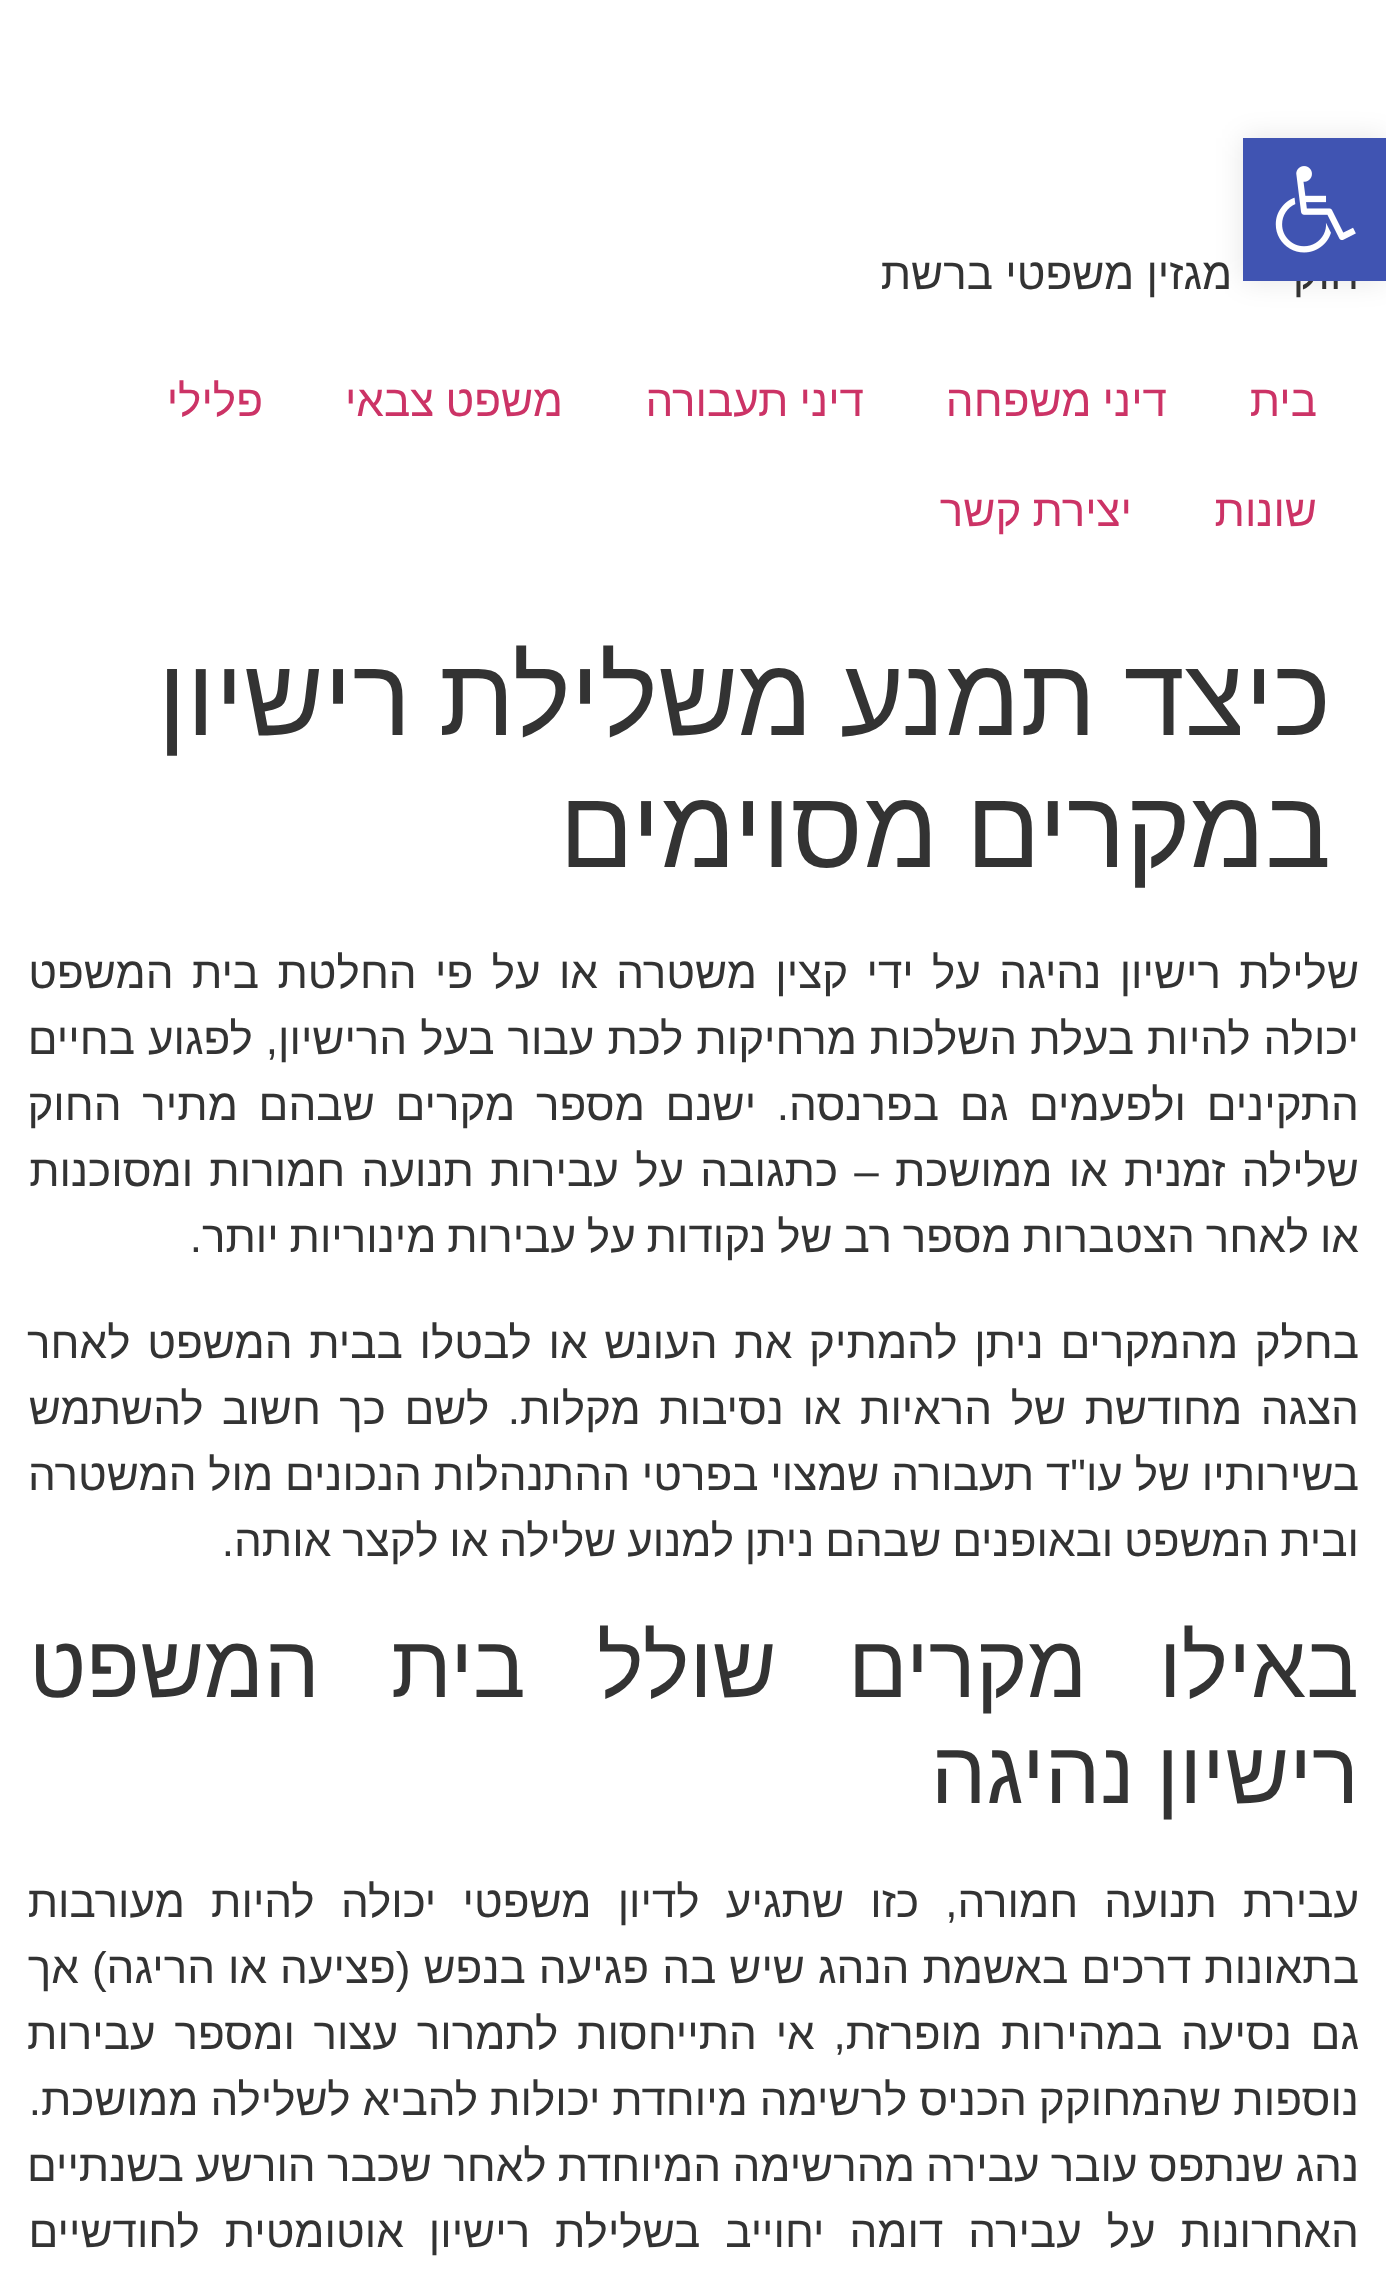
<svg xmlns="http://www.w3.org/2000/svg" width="1386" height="2284">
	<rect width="100%" height="100%" fill="#FFFFFF" />
	<rect x="1243" y="138" width="143" height="143" fill="#000000" fill-opacity="0.1" filter="blur(14px)" />
	<text x="1359" y="289" font-family="Liberation Sans" font-size="44" direction="rtl" fill="#333333">חוקי – מגזין משפטי ברשת</text>
	<rect x="1243" y="138" width="143" height="143" fill="#4054B2" />
	<image x="1275" y="166" width="81" height="87" href="assets/img1.png" />
	<g font-family="Liberation Sans" font-size="44" direction="rtl" fill="#CC3366">
		<text x="1317" y="416">בית</text>
		<text x="1167" y="416" word-spacing="-1">דיני משפחה</text>
		<text x="864" y="416" word-spacing="-1">דיני תעבורה</text>
		<text x="563" y="416" word-spacing="-1">משפט צבאי</text>
		<text x="263" y="416">פלילי</text>
		<text x="1317" y="526">שונות</text>
		<text x="1132" y="526" word-spacing="-1">יצירת קשר</text>
	</g>
	<g font-family="Liberation Sans" font-size="110" direction="rtl" fill="#333333">
		<text x="1331" y="735" word-spacing="-3">כיצד תמנע משלילת רישיון</text>
		<text x="1331" y="867" word-spacing="-3">במקרים מסוימים</text>
	</g>
	<g font-family="Liberation Sans" font-size="44" direction="rtl" fill="#333333">
		<text x="1359" y="988" word-spacing="6.1">שלילת רישיון נהיגה על ידי קצין משטרה או על פי החלטת בית המשפט</text>
		<text x="1359" y="1054" word-spacing="0.75">יכולה להיות בעלת השלכות מרחיקות לכת עבור בעל הרישיון, לפגוע בחיים</text>
		<text x="1359" y="1120" word-spacing="8.5">התקינים ולפעמים גם בפרנסה. ישנם מספר מקרים שבהם מתיר החוק</text>
		<text x="1359" y="1186" word-spacing="4">שלילה זמנית או ממושכת – כתגובה על עבירות תנועה חמורות ומסוכנות</text>
		<text x="1359" y="1252" word-spacing="-1.4">או לאחר הצטברות מספר רב של נקודות על עבירות מינוריות יותר.</text>
		<text x="1359" y="1358" word-spacing="4.5">בחלק מהמקרים ניתן להמתיק את העונש או לבטלו בבית המשפט לאחר</text>
		<text x="1359" y="1424" word-spacing="6.25">הצגה מחודשת של הראיות או נסיבות מקלות. לשם כך חשוב להשתמש</text>
		<text x="1359" y="1490" word-spacing="-0.5">בשירותיו של עו"ד תעבורה שמצוי בפרטי ההתנהלות הנכונים מול המשטרה</text>
		<text x="1359" y="1556" word-spacing="-1.4">ובית המשפט ובאופנים שבהם ניתן למנוע שלילה או לקצר אותה.</text>
	</g>
	<g font-family="Liberation Sans" font-size="88" direction="rtl" fill="#333333">
		<text x="1359" y="1697" word-spacing="47">באילו מקרים שולל בית המשפט</text>
		<text x="1359" y="1803" word-spacing="-3">רישיון נהיגה</text>
	</g>
	<g font-family="Liberation Sans" font-size="44" direction="rtl" fill="#333333">
		<text x="1359" y="1917" word-spacing="14">עבירת תנועה חמורה, כזו שתגיע לדיון משפטי יכולה להיות מעורבות</text>
		<text x="1359" y="1983" word-spacing="0.75">בתאונות דרכים באשמת הנהג שיש בה פגיעה בנפש (פציעה או הריגה) אך</text>
		<text x="1359" y="2049" word-spacing="6.5">גם נסיעה במהירות מופרזת, אי התייחסות לתמרור עצור ומספר עבירות</text>
		<text x="1359" y="2115" word-spacing="-0.25">נוספות שהמחוקק הכניס לרשימה מיוחדת יכולות להביא לשלילה ממושכת.</text>
		<text x="1359" y="2181" word-spacing="-1">נהג שנתפס עובר עבירה מהרשימה המיוחדת לאחר שכבר הורשע בשנתיים</text>
		<text x="1359" y="2247" word-spacing="12.75">האחרונות על עבירה דומה יחוייב בשלילת רישיון אוטומטית לחודשיים</text>
	</g>
</svg>
